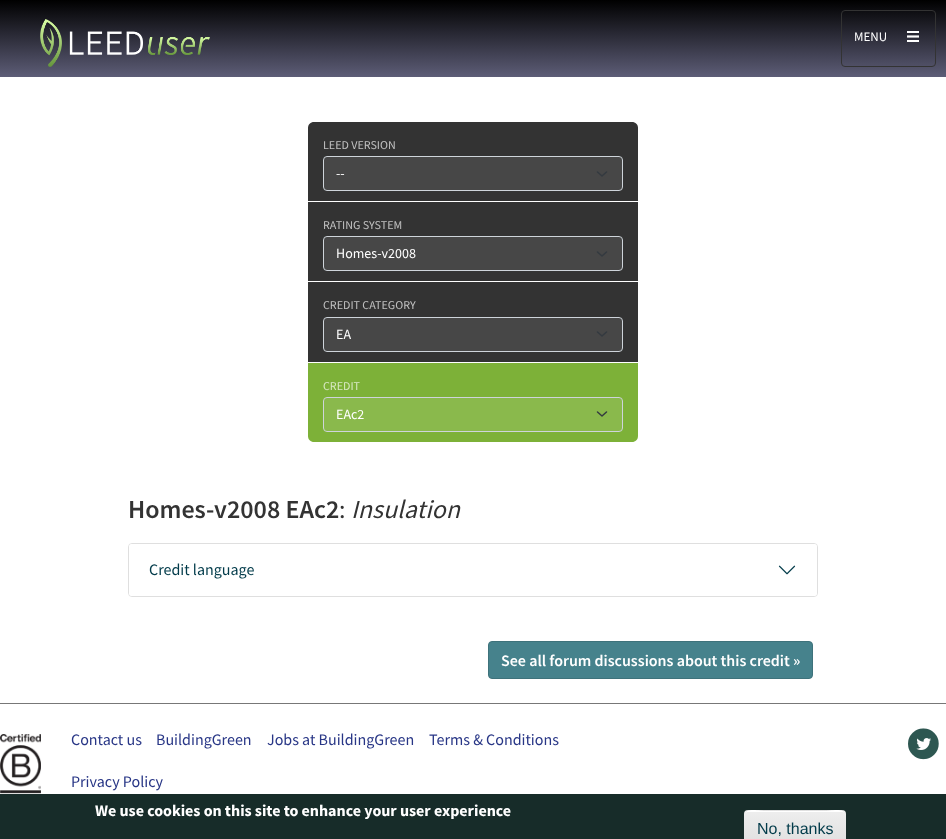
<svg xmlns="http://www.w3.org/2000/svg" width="946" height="839">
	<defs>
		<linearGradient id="g1" gradientUnits="userSpaceOnUse" x1="473" y1="0" x2="473" y2="77"><stop offset="0" stop-color="#000000" /><stop offset="1" stop-color="#5D5D77" /></linearGradient>
		<clipPath id="clip1"><rect x="907" y="31" width="12" height="11" /></clipPath>
		<clipPath id="clip2"><rect x="744" y="810" width="102" height="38" rx="4" /></clipPath>
		<linearGradient id="g2" gradientUnits="userSpaceOnUse" x1="795" y1="775" x2="795" y2="811"><stop offset="0.05" stop-color="#EDEDED" /><stop offset="1" stop-color="#DFDFDF" /></linearGradient>
		<linearGradient id="g3" gradientUnits="userSpaceOnUse" x1="795" y1="811" x2="795" y2="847"><stop offset="0.05" stop-color="#EDEDED" /><stop offset="1" stop-color="#DFDFDF" /></linearGradient>
	</defs>
	<rect width="100%" height="100%" fill="#FFFFFF" />
	<rect x="0" y="0" width="946" height="77" fill="url(#g1)" />
	<image x="40" y="19" width="170" height="48" href="assets/img1.png" />
	<rect x="841.5" y="10.5" width="94" height="56" rx="3.5" fill="none" stroke="#333333" />
	<text x="854" y="41" font-family="Source Sans Pro" font-size="13" fill="#FFFFFF">MENU</text>
	<rect x="907" y="31" width="12" height="2" fill="#FFFFFF" />
	<g clip-path="url(#clip1)">
		<path d="M907 36.5H923" fill="none" stroke="#FFFFFF" stroke-width="2.2" />
	</g>
	<rect x="907" y="40" width="12" height="2" fill="#FFFFFF" />
	<path d="M314 122H632C635.5 122 638 124.5 638 128V201H308V128C308 124.5 310.5 122 314 122Z" fill="#333333" />
	<text x="323" y="149" font-family="Source Sans Pro" font-size="12" fill="#C2C2C2">LEED VERSION</text>
	<rect x="324" y="157" width="298" height="33" rx="3" fill="#474747" />
	<path d="M597.5 172L602 176L606.5 172" fill="none" stroke="#343A40" stroke-width="1.5" stroke-linecap="round" stroke-linejoin="round" />
	<rect x="323.5" y="156.5" width="299" height="34" rx="3.5" fill="none" stroke="#CED4DA" />
	<text x="336" y="178" font-family="Source Sans Pro" font-size="14" fill="#FFFFFF">--</text>
	<rect x="308" y="202" width="330" height="79" fill="#333333" />
	<text x="323" y="229" font-family="Source Sans Pro" font-size="12" fill="#C2C2C2">RATING SYSTEM</text>
	<rect x="324" y="237" width="298" height="33" rx="3" fill="#474747" />
	<path d="M597.5 252L602 256L606.5 252" fill="none" stroke="#343A40" stroke-width="1.5" stroke-linecap="round" stroke-linejoin="round" />
	<rect x="323.5" y="236.5" width="299" height="34" rx="3.5" fill="none" stroke="#CED4DA" />
	<text x="336" y="258" font-family="Source Sans Pro" font-size="14" fill="#FFFFFF">Homes-v2008</text>
	<rect x="308" y="282" width="330" height="80" fill="#333333" />
	<text x="323" y="309" font-family="Source Sans Pro" font-size="12" fill="#C2C2C2">CREDIT CATEGORY</text>
	<rect x="324" y="318" width="298" height="33" rx="3" fill="#474747" />
	<path d="M597.5 332L602 336L606.5 332" fill="none" stroke="#343A40" stroke-width="1.5" stroke-linecap="round" stroke-linejoin="round" />
	<rect x="323.5" y="317.5" width="299" height="34" rx="3.5" fill="none" stroke="#CED4DA" />
	<text x="336" y="339" font-family="Source Sans Pro" font-size="14" fill="#FFFFFF">EA</text>
	<path d="M308 363H638V436C638 439.5 635.5 442 632 442H314C310.5 442 308 439.5 308 436Z" fill="#7DB138" />
	<text x="323" y="390" font-family="Source Sans Pro" font-size="12" fill="#D8E8C3">CREDIT</text>
	<rect x="324" y="398" width="298" height="33" rx="3" fill="#8AB94C" />
	<path d="M597.5 412L602 416L606.5 412" fill="none" stroke="#343A40" stroke-width="1.5" stroke-linecap="round" stroke-linejoin="round" />
	<rect x="323.5" y="397.5" width="299" height="34" rx="3.5" fill="none" stroke="#CED4DA" />
	<text x="336" y="419" font-family="Source Sans Pro" font-size="14" fill="#FFFFFF">EAc2</text>
	<text x="128" y="518" font-family="Source Sans Pro" font-size="26" font-weight="600" fill="#333333">Homes-v2008 EAc2</text>
	<text x="339" y="518" font-family="Source Sans Pro" font-size="26" fill="#333333">:</text>
	<text x="351" y="518" font-family="Source Sans Pro" font-size="26" font-style="italic" fill="#333333">Insulation</text>
	<rect x="128.5" y="543.5" width="689" height="53" rx="3.5" fill="none" stroke="#DFDFDF" />
	<rect x="129" y="544" width="688" height="52" rx="3" fill="#FFFFFF" />
	<text x="149" y="575" font-family="Source Sans Pro" font-size="16" fill="#023B4A">Credit language</text>
	<image x="778" y="565" width="18" height="10" href="assets/img2.png" />
	<rect x="488.5" y="641.5" width="324" height="37" rx="3.5" fill="#46828C" stroke="#3E727B" />
	<text x="501" y="666" font-family="Source Sans Pro" font-size="16" font-weight="600" fill="#FFFFFF">See all forum discussions about this credit »</text>
	<rect x="0" y="703" width="946" height="1" fill="#777777" />
	<image x="0" y="734" width="41" height="60" href="assets/img3.png" />
	<g font-family="Source Sans Pro" font-size="16" fill="#283686">
		<text x="71" y="745">Contact us</text>
		<text x="156" y="745">BuildingGreen</text>
		<text x="267" y="745">Jobs at BuildingGreen</text>
		<text x="429" y="745">Terms &amp; Conditions</text>
		<text x="71" y="787">Privacy Policy</text>
	</g>
	<image x="908" y="728" width="31" height="32" href="assets/img4.png" />
	<rect x="0" y="794" width="946" height="45" fill="#172C29" />
	<text x="95" y="816" font-family="Source Sans Pro" font-size="16" font-weight="700" fill="#FFFFFF">We use cookies on this site to enhance your user experience</text>
	<g clip-path="url(#clip2)">
		<rect x="744" y="810" width="102" height="1" fill="url(#g2)" />
		<rect x="744" y="811" width="102" height="28" fill="url(#g3)" />
	</g>
	<path d="M748 812H842C844 812 845 813 845 815C845 807 829 811 826 811H764C761 811 745 807 745 815C745 813 746 812 748 812Z" fill="#FFFFFF" />
	<text x="757" y="834" font-family="Liberation Sans" font-size="16" fill="#023B4A">No, thanks</text>
</svg>
